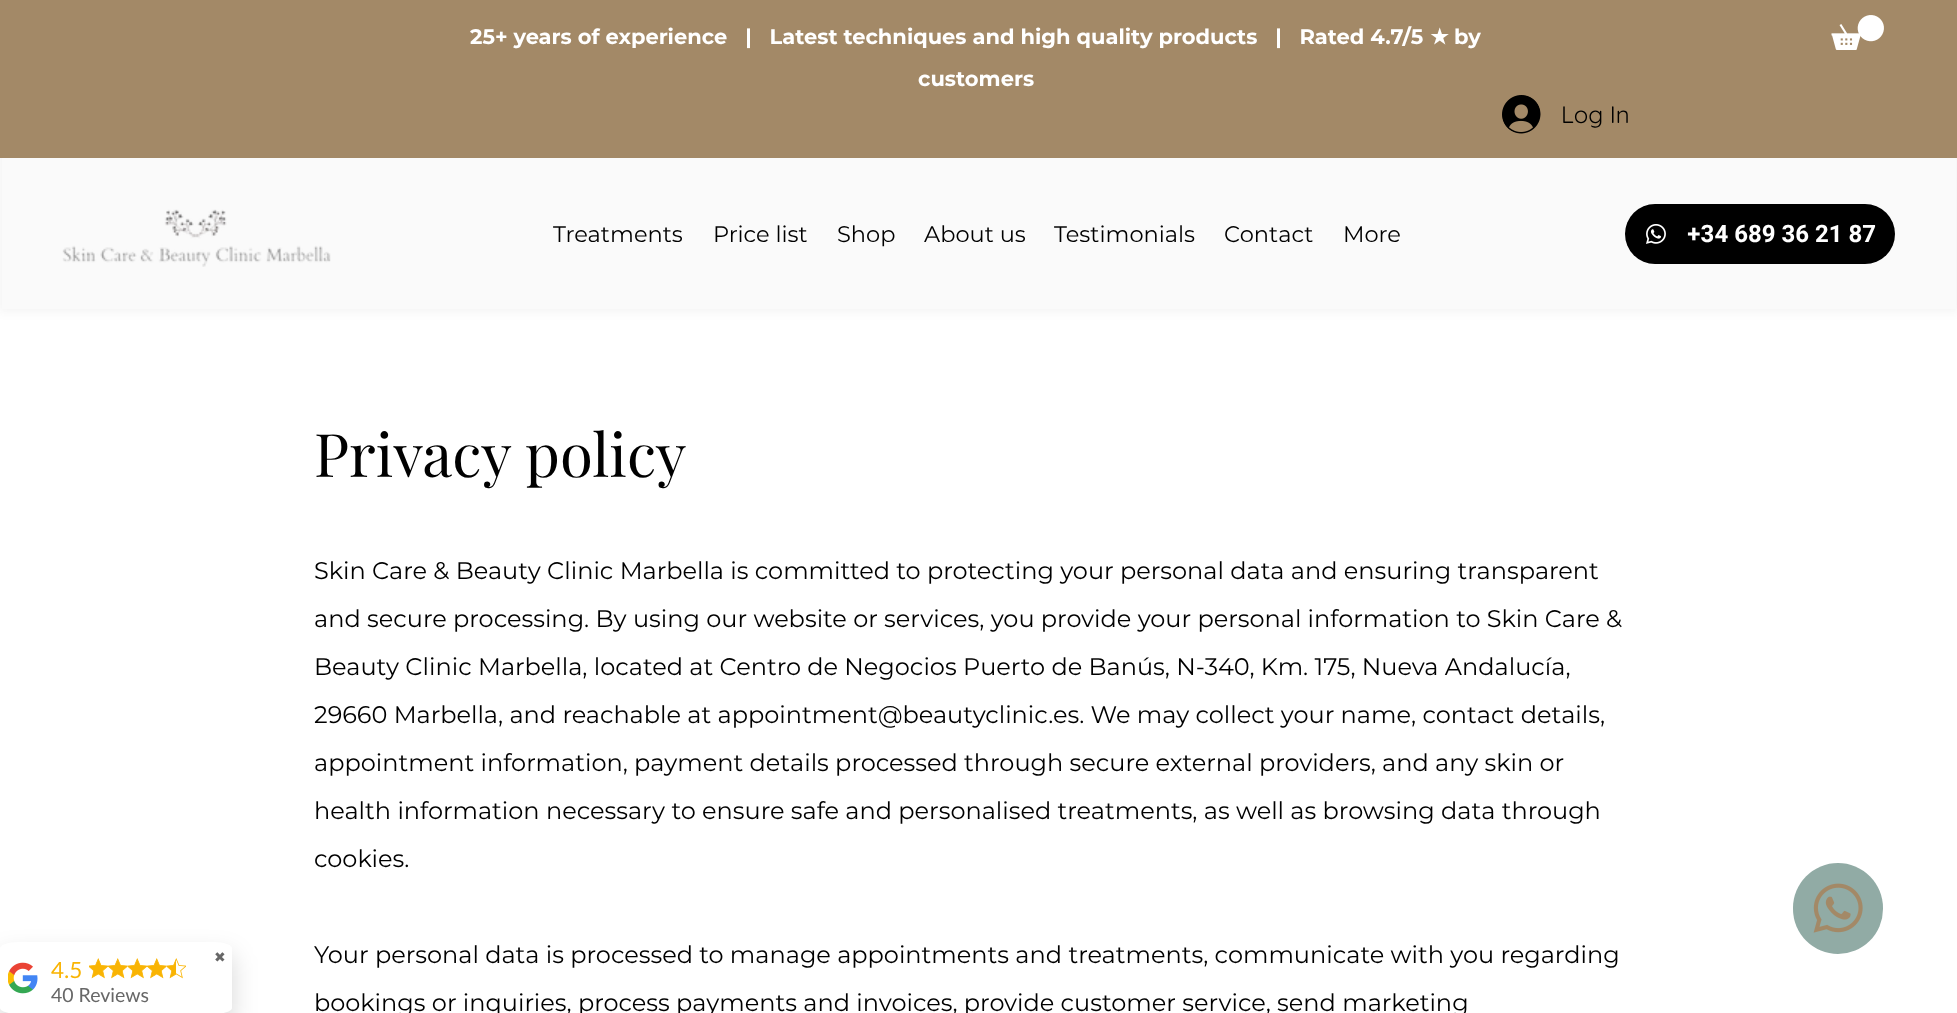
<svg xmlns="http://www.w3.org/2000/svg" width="1957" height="1013">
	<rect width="100%" height="100%" fill="#FFFFFF" />
	<rect x="0" y="954" width="233" height="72" rx="6" fill="#000000" fill-opacity="0.15" filter="blur(12px)" />
	<path d="M19 942H214C224 942 232 945 232 948V1008C232 1011 224 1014 214 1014H19C8 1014 0 1011 0 1008V948C0 945 8 942 19 942Z" fill="#FFFFFF" />
	<text x="214" y="962" font-family="DejaVu Sans" font-size="14" fill="#676767">✖</text>
	<image x="8" y="962" width="30" height="32" href="assets/img1.png" />
	<text x="51" y="978" font-family="Lato" font-size="22.5" fill="#F9B403">4.5</text>
	<image x="89" y="958" width="19" height="21" href="assets/img2.png" />
	<image x="108" y="958" width="20" height="21" href="assets/img3.png" />
	<image x="128" y="958" width="19" height="21" href="assets/img2.png" />
	<image x="147" y="958" width="20" height="21" href="assets/img3.png" />
	<image x="167" y="958" width="19" height="21" href="assets/img4.png" />
	<text x="51" y="1002" font-family="Lato" font-size="19.5" fill="#676767">40 Reviews</text>
	<rect x="-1" y="0" width="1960" height="312" fill="#2F2E2E" fill-opacity="0.05" filter="blur(5px)" />
	<rect x="2" y="158" width="1954" height="151" fill="#FAFAFA" />
	<rect x="0" y="0" width="1957" height="158" fill="#A38967" />
	<text x="470" y="44" font-family="Montserrat" font-size="21" font-weight="700" fill="#FFFFFF" xml:space="preserve">25+ years of experience   |   Latest techniques and high quality products   |   Rated 4.7/5</text>
	<text x="1430" y="44" font-family="DejaVu Sans" font-size="21" font-weight="700" fill="#FFFFFF">★</text>
	<g font-family="Montserrat" font-size="21" font-weight="700" fill="#FFFFFF">
		<text x="1454" y="44">by</text>
		<text x="918" y="86">customers</text>
	</g>
	<image x="1831" y="15" width="53" height="35" href="assets/img5.png" />
	<image x="1502" y="95" width="39" height="39" href="assets/img6.png" />
	<text x="1561" y="123" font-family="Quicksand" font-size="24" fill="#000000">Log In</text>
	<image x="62" y="209" width="269" height="58" href="assets/img7.png" />
	<g font-family="Montserrat" font-size="22.5" fill="#000000">
		<text x="553" y="242">Treatments</text>
		<text x="713" y="242">Price list</text>
		<text x="837" y="242">Shop</text>
		<text x="924" y="242">About us</text>
		<text x="1054" y="242">Testimonials</text>
		<text x="1224" y="242">Contact</text>
		<text x="1343" y="242">More</text>
	</g>
	<rect x="1625" y="204" width="270" height="60" rx="30" fill="#000000" />
	<image x="1646" y="224" width="20" height="20" href="assets/img8.png" />
	<text x="1687" y="242" font-family="Heebo" font-size="24" font-weight="700" fill="#FFFFFF">+34 689 36 21 87</text>
	<text x="314" y="477" font-family="Playfair Display" font-size="60" fill="#000000">Privacy policy</text>
	<g font-family="Montserrat" font-size="24" fill="#000000">
		<text x="314" y="579">Skin Care &amp; Beauty Clinic Marbella is committed to protecting your personal data and ensuring transparent</text>
		<text x="314" y="627">and secure processing. By using our website or services, you provide your personal information to Skin Care &amp;</text>
		<text x="314" y="675">Beauty Clinic Marbella, located at Centro de Negocios Puerto de Banús, N-340, Km. 175, Nueva Andalucía,</text>
		<text x="314" y="723">29660 Marbella, and reachable at appointment@beautyclinic.es. We may collect your name, contact details,</text>
		<text x="314" y="771">appointment information, payment details processed through secure external providers, and any skin or</text>
		<text x="314" y="819">health information necessary to ensure safe and personalised treatments, as well as browsing data through</text>
		<text x="314" y="867">cookies.</text>
		<text x="314" y="963">Your personal data is processed to manage appointments and treatments, communicate with you regarding</text>
		<text x="314" y="1011">bookings or inquiries, process payments and invoices, provide customer service, send marketing</text>
	</g>
	<rect x="1793" y="863" width="90" height="91" rx="45" fill="#91ABA5" />
	<image x="1813" y="883" width="50" height="50" href="assets/img9.png" />
</svg>
